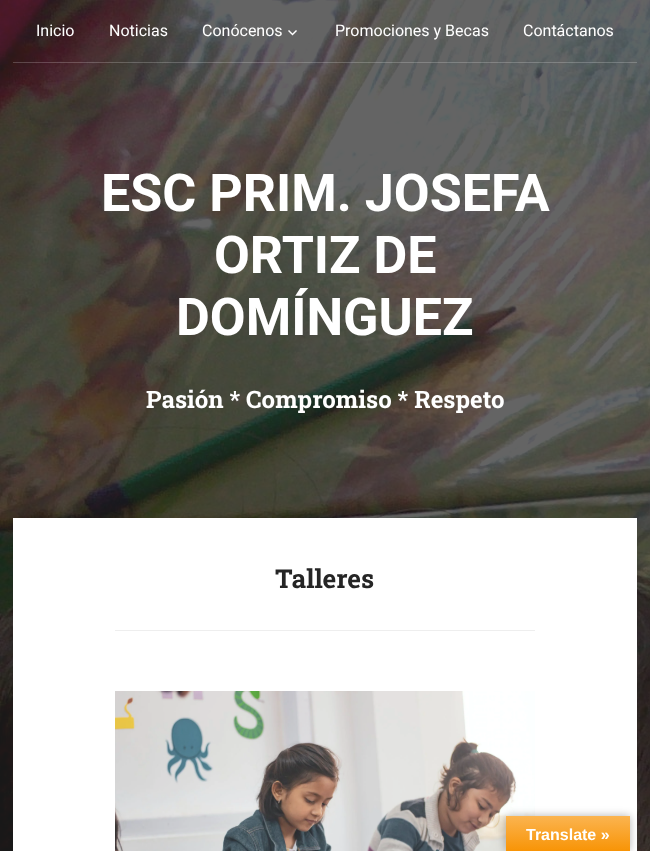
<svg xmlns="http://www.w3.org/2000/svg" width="650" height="851">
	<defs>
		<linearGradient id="g1" gradientUnits="userSpaceOnUse" x1="568" y1="816" x2="568" y2="851"><stop offset="0" stop-color="#FBB450" /><stop offset="1" stop-color="#F89406" /></linearGradient>
	</defs>
	<rect width="100%" height="100%" fill="#FFFFFF" />
	<image x="0" y="0" width="650" height="851" href="assets/img1.png" />
	<rect x="13" y="62" width="624" height="1" fill="#FFFFFF" fill-opacity="0.2" />
	<g font-family="Roboto" font-size="16" fill="#FFFFFF">
		<text x="36" y="36">Inicio</text>
		<text x="109" y="36">Noticias</text>
		<text x="202" y="36">Conócenos</text>
	</g>
	<image x="288" y="30" width="9" height="6" href="assets/img2.png" />
	<g font-family="Roboto" font-size="16" fill="#FFFFFF">
		<text x="335" y="36">Promociones y Becas</text>
		<text x="523" y="36">Contáctanos</text>
	</g>
	<g font-family="Roboto" font-size="52" font-weight="700" fill="#FFFFFF">
		<text x="101" y="211">ESC PRIM. JOSEFA</text>
		<text x="214" y="273">ORTIZ DE</text>
		<text x="176" y="335">DOMÍNGUEZ</text>
	</g>
	<text x="146" y="408" font-family="Roboto Slab" font-size="24" font-weight="700" fill="#FFFFFF">Pasión * Compromiso * Respeto</text>
	<rect x="13" y="518" width="624" height="333" fill="#FFFFFF" />
	<rect x="115" y="630" width="420" height="1" fill="#EEEEEE" />
	<text x="275" y="588" font-family="Roboto Slab" font-size="26" font-weight="700" fill="#252525">Talleres</text>
	<image x="115" y="691" width="420" height="160" href="assets/img3.png" />
	<rect x="506" y="816" width="124" height="35" fill="#000000" fill-opacity="0.3" filter="blur(4.5px)" />
	<rect x="506" y="816" width="124" height="35" fill="url(#g1)" />
	<text x="526" y="840" font-family="Liberation Sans" font-size="16" font-weight="700" fill="#FFFFFF">Translate »</text>
</svg>
